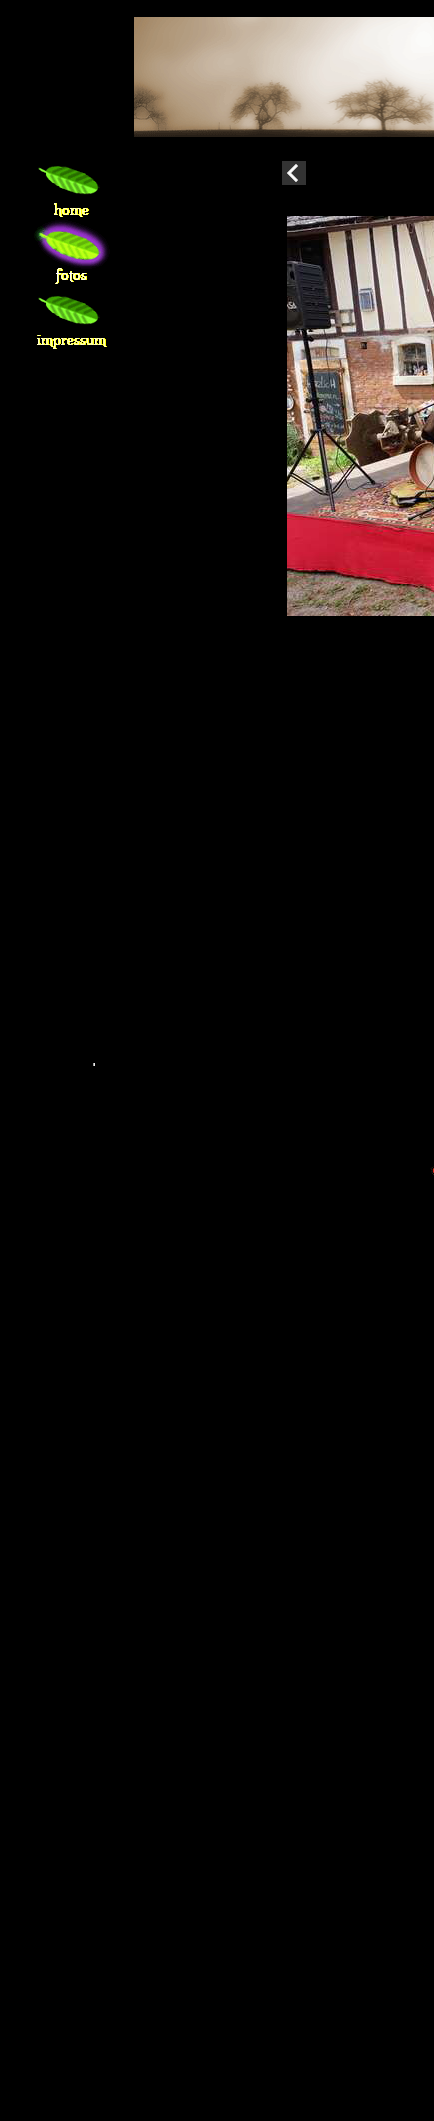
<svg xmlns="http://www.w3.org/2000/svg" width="434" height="2121">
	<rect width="100%" height="100%" fill="#000000" />
	<image x="38" y="166" width="62" height="51" href="assets/img1.png" />
	<image x="34" y="220" width="76" height="64" href="assets/img2.png" />
	<image x="37" y="296" width="70" height="53" href="assets/img3.png" />
	<rect x="94" y="1063" width="1" height="3" fill="#EEEEEE" />
	<rect x="93" y="1065" width="2" height="1" fill="#EEEEEE" />
	<rect x="93" y="1063" width="1" height="3" fill="#9F9F9F" />
	<image x="134" y="17" width="300" height="120" href="assets/img4.png" />
	<image x="282" y="161" width="24" height="24" href="assets/img5.png" />
	<image x="287" y="216" width="147" height="400" href="assets/img6.png" />
	<image x="430" y="1166" width="4" height="10" href="assets/img7.png" />
</svg>
